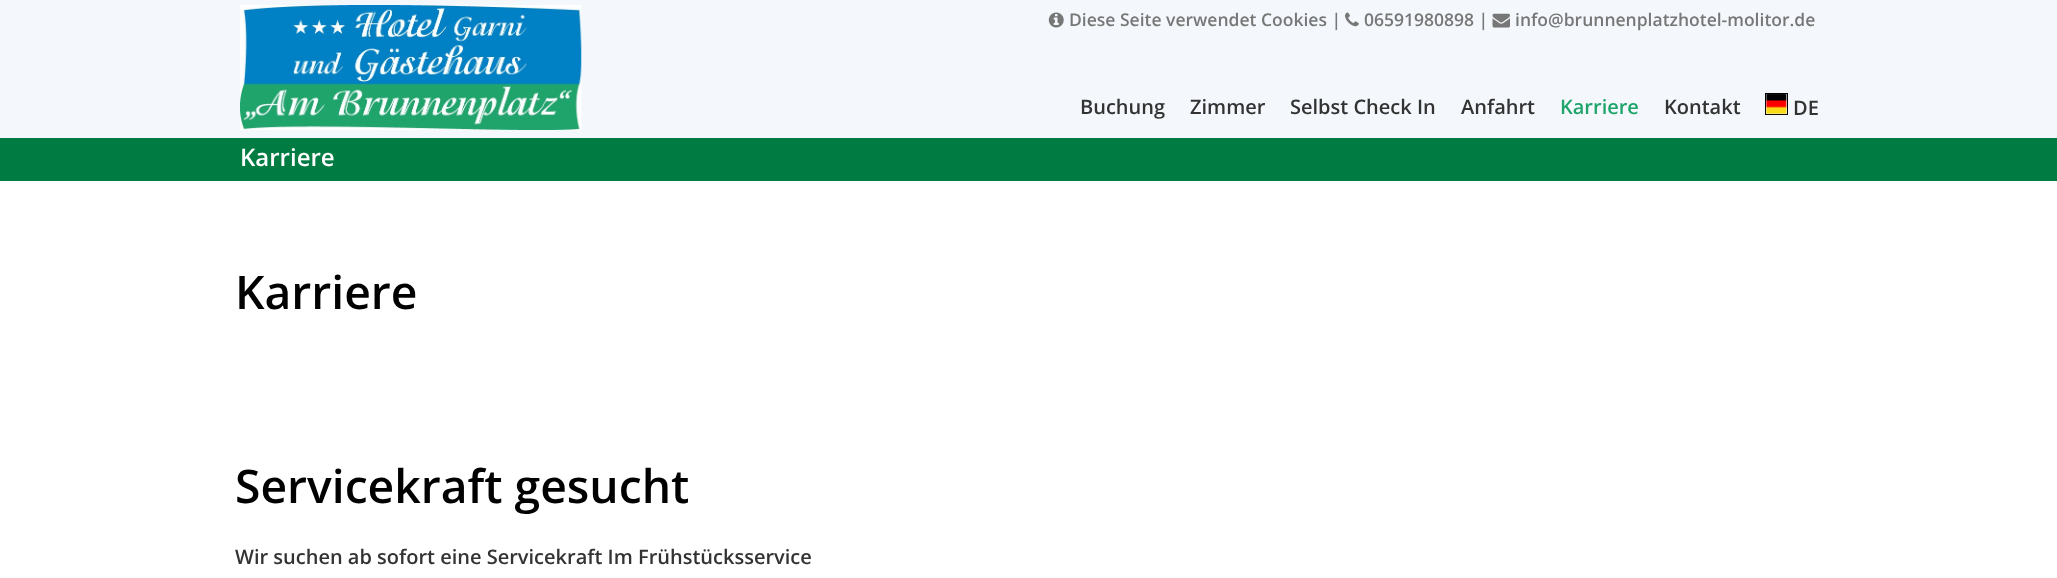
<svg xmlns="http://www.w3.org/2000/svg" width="2057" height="578">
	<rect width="100%" height="100%" fill="#F4F8FC" />
	<image x="1048" y="12" width="16" height="16" href="assets/img1.png" />
	<text x="1069" y="26" font-family="Open Sans" font-size="17.5" font-weight="600" fill="#777777">Diese Seite verwendet Cookies |</text>
	<image x="1345" y="12" width="14" height="15" href="assets/img2.png" />
	<text x="1364" y="26" font-family="Open Sans" font-size="17.5" font-weight="600" fill="#777777">06591980898 |</text>
	<image x="1492" y="13" width="18" height="15" href="assets/img3.png" />
	<text x="1515" y="26" font-family="Open Sans" font-size="17.5" font-weight="600" fill="#777777">info@brunnenplatzhotel-molitor.de</text>
	<image x="240" y="5" width="342" height="125" href="assets/img4.png" />
	<g font-family="Open Sans" font-size="20" font-weight="600" fill="#333333">
		<text x="1080" y="114">Buchung</text>
		<text x="1190" y="114">Zimmer</text>
		<text x="1290" y="114">Selbst Check In</text>
		<text x="1461" y="114">Anfahrt</text>
	</g>
	<text x="1560" y="114" font-family="Open Sans" font-size="20" font-weight="600" fill="#1FA46B">Karriere</text>
	<text x="1664" y="114" font-family="Open Sans" font-size="20" font-weight="600" fill="#333333">Kontakt</text>
	<rect x="1765.5" y="93.5" width="22" height="21" fill="none" stroke="#000000" />
	<image x="1765" y="94" width="22" height="21" href="assets/img5.png" />
	<text x="1793" y="115" font-family="Open Sans" font-size="20" font-weight="600" fill="#333333">DE</text>
	<rect x="0" y="138" width="2057" height="43" fill="#007C43" />
	<text x="240" y="166" font-family="Open Sans" font-size="24" font-weight="600" fill="#FFFFFF">Karriere</text>
	<rect x="0" y="181" width="2057" height="397" fill="#FFFFFF" />
	<g font-family="Open Sans" font-size="46.25" font-weight="600" fill="#000000">
		<text x="235" y="309">Karriere</text>
		<text x="235" y="503">Servicekraft gesucht</text>
	</g>
	<text x="235" y="564" font-family="Open Sans" font-size="20" font-weight="600" fill="#333333">Wir suchen ab sofort eine Servicekraft Im Frühstücksservice</text>
</svg>
